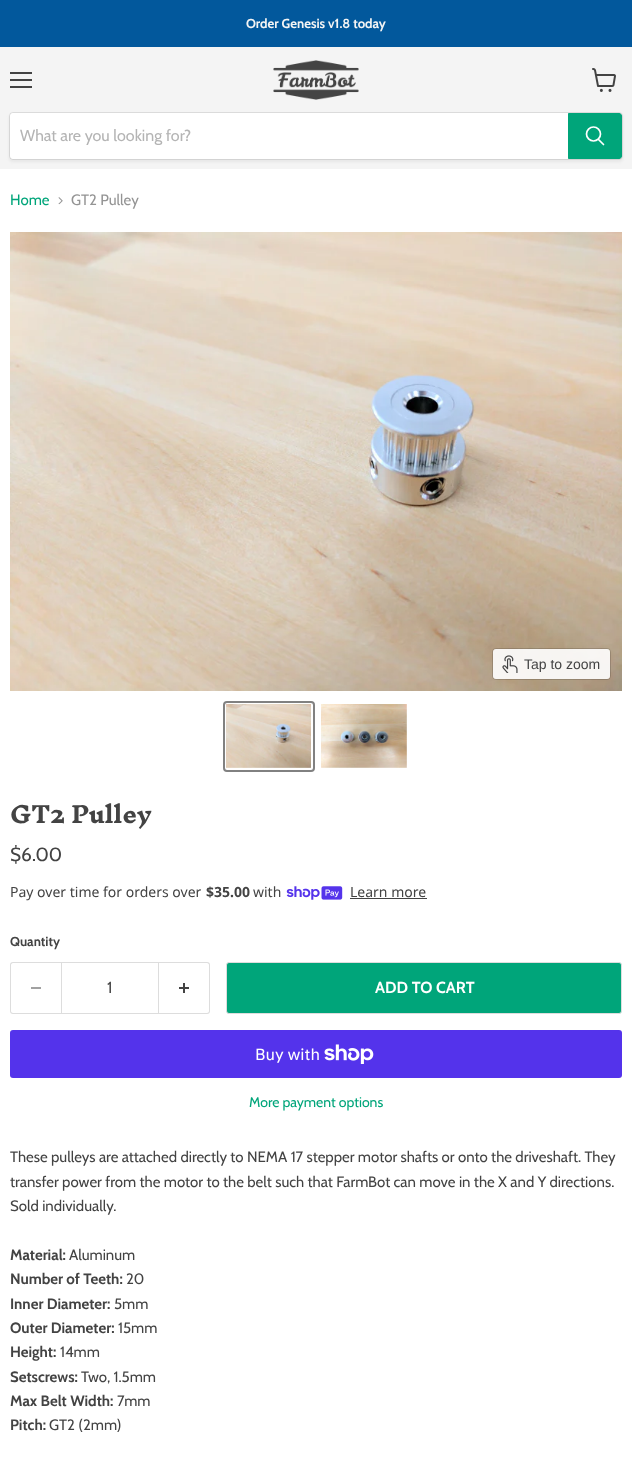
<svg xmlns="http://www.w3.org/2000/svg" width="632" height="1477">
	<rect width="100%" height="100%" fill="#FFFFFF" />
	<rect x="0" y="0" width="632" height="47" fill="#02589C" />
	<text x="246" y="28" font-family="Cabin" font-size="13.1" font-weight="700" fill="#F4F4F4">Order Genesis v1.8 today</text>
	<rect x="0" y="47" width="632" height="122" fill="#F4F4F4" />
	<rect x="10" y="72" width="22" height="2" fill="#434343" />
	<rect x="10" y="79" width="22" height="2" fill="#434343" />
	<rect x="10" y="86" width="22" height="2" fill="#434343" />
	<image x="592" y="68" width="24" height="24" href="assets/img1.png" />
	<image x="273" y="60" width="86" height="40" href="assets/img2.png" />
	<rect x="9" y="114" width="614" height="48" rx="4" fill="#808080" fill-opacity="0.11" filter="blur(1.5px)" />
	<rect x="9.5" y="112.5" width="613" height="47" rx="3.5" fill="none" stroke="#808080" stroke-opacity="0.2" />
	<path d="M13 113H568V159H13C11.5 159 10 157.5 10 156V116C10 114.5 11.5 113 13 113Z" fill="#FFFFFF" />
	<text x="20" y="141" font-family="Cabin" font-size="16" fill="#B4B4B4">What are you looking for?</text>
	<path d="M568.5 113.5H619C620.5 113.5 621.5 114.5 621.5 116V156C621.5 157.5 620.5 158.5 619 158.5H568.5Z" fill="#00A57A" stroke="#00A57A" />
	<path d="M603.5 144.5L598.5 139.5" fill="none" stroke="#FFFFFF" stroke-width="1.7" stroke-linecap="round" />
	<circle cx="593.5" cy="134" r="7" fill="none" stroke="#FFFFFF" stroke-width="1.7" />
	<text x="10" y="205" font-family="Cabin" font-size="15" fill="#00A57A">Home</text>
	<image x="58" y="197" width="5" height="8" href="assets/img3.png" />
	<text x="71" y="205" font-family="Cabin" font-size="15" fill="#949494">GT2 Pulley</text>
	<image x="10" y="232" width="612" height="459" href="assets/img4.png" />
	<rect x="492.5" y="648.5" width="118" height="31" rx="3.5" fill="none" stroke="#000000" stroke-opacity="0.15" />
	<rect x="493" y="649" width="117" height="30" rx="3" fill="#FFFFFF" fill-opacity="0.9" />
	<image x="502" y="655" width="16" height="18" href="assets/img5.png" />
	<text x="524" y="669" font-family="Liberation Sans" font-size="14" fill="#434343">Tap to zoom</text>
	<rect x="224" y="702" width="90" height="69" rx="3" fill="none" stroke="#818181" stroke-width="2" />
	<image x="226" y="704" width="85" height="64" href="assets/img6.png" />
	<image x="321" y="704" width="86" height="64" href="assets/img7.png" />
	<text x="10" y="823" font-family="Inknut Antiqua" font-size="22.5" font-weight="700" fill="#434343">GT2 Pulley</text>
	<text x="10" y="861" font-family="Cabin" font-size="19" fill="#434343">$6.00</text>
	<text x="10" y="897" font-family="Noto Sans" font-size="14" fill="#434343">Pay over time for orders over</text>
	<text x="206" y="897" font-family="Noto Sans" font-size="14" font-weight="700" fill="#434343">$35.00</text>
	<text x="253" y="897" font-family="Noto Sans" font-size="14" fill="#434343">with</text>
	<image x="286" y="886" width="57" height="14" href="assets/img8.png" />
	<text x="350" y="897" font-family="Noto Sans" font-size="14" fill="#434343">Learn more</text>
	<rect x="350" y="898" width="77" height="1" fill="#434343" />
	<text x="10" y="946" font-family="Cabin" font-size="13.1" font-weight="700" fill="#434343">Quantity</text>
	<path d="M13 962H61V1014H13C11 1014 10 1013 10 1011V965C10 963 11 962 13 962ZM13 963H61V1013H13C12 1013 11 1012 11 1011V965C11 964 12 963 13 963Z" fill="#DDDDDD" fill-rule="evenodd" />
	<rect x="31" y="987" width="10" height="2" fill="#A1A1A1" />
	<rect x="61.5" y="962.5" width="97" height="51" fill="none" stroke="#DDDDDD" />
	<text x="107" y="993" font-family="Cabin" font-size="16" fill="#434343">1</text>
	<path d="M159 962H207C209 962 210 963 210 965V1011C210 1013 209 1014 207 1014H159ZM159 963H207C208 963 209 964 209 965V1011C209 1012 208 1013 207 1013H159Z" fill="#DDDDDD" fill-rule="evenodd" />
	<image x="179" y="983" width="10" height="10" href="assets/img9.png" />
	<rect x="226.5" y="962.5" width="395" height="51" rx="2.5" fill="#00A57A" stroke="#DDDDDD" />
	<text x="375" y="993" font-family="Cabin" font-size="16" font-weight="700" fill="#FFFFFF">ADD TO CART</text>
	<rect x="10" y="1030" width="612" height="48" rx="3" fill="#5433EB" />
	<text x="255" y="1060" font-family="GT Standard" font-size="16" fill="#FFFFFF">Buy with</text>
	<image x="324" y="1044" width="50" height="20" href="assets/img10.png" />
	<text x="249" y="1107" font-family="Cabin" font-size="14" fill="#00A57A">More payment options</text>
	<g font-family="Cabin" font-size="15" fill="#434343">
		<text x="10" y="1162">These pulleys are attached directly to NEMA 17 stepper motor shafts or onto the driveshaft. They</text>
		<text x="10" y="1187">transfer power from the motor to the belt such that FarmBot can move in the X and Y directions.</text>
		<text x="10" y="1211">Sold individually.</text>
	</g>
	<text x="10" y="1260" font-family="Cabin" font-size="15" font-weight="700" fill="#434343">Material:</text>
	<text x="69" y="1260" font-family="Cabin" font-size="15" fill="#434343">Aluminum</text>
	<text x="10" y="1284" font-family="Cabin" font-size="15" font-weight="700" fill="#434343">Number of Teeth:</text>
	<text x="126" y="1284" font-family="Cabin" font-size="15" fill="#434343">20</text>
	<text x="10" y="1309" font-family="Cabin" font-size="15" font-weight="700" fill="#434343">Inner Diameter:</text>
	<text x="114" y="1309" font-family="Cabin" font-size="15" fill="#434343">5mm</text>
	<text x="10" y="1333" font-family="Cabin" font-size="15" font-weight="700" fill="#434343">Outer Diameter:</text>
	<text x="118" y="1333" font-family="Cabin" font-size="15" fill="#434343">15mm</text>
	<text x="10" y="1357" font-family="Cabin" font-size="15" font-weight="700" fill="#434343">Height:</text>
	<text x="60" y="1357" font-family="Cabin" font-size="15" fill="#434343">14mm</text>
	<text x="10" y="1382" font-family="Cabin" font-size="15" font-weight="700" fill="#434343">Setscrews:</text>
	<text x="81" y="1382" font-family="Cabin" font-size="15" fill="#434343">Two, 1.5mm</text>
	<text x="10" y="1406" font-family="Cabin" font-size="15" font-weight="700" fill="#434343">Max Belt Width:</text>
	<text x="117" y="1406" font-family="Cabin" font-size="15" fill="#434343">7mm</text>
	<text x="10" y="1430" font-family="Cabin" font-size="15" font-weight="700" fill="#434343">Pitch:</text>
	<text x="49" y="1430" font-family="Cabin" font-size="15" fill="#434343">GT2 (2mm)</text>
</svg>
